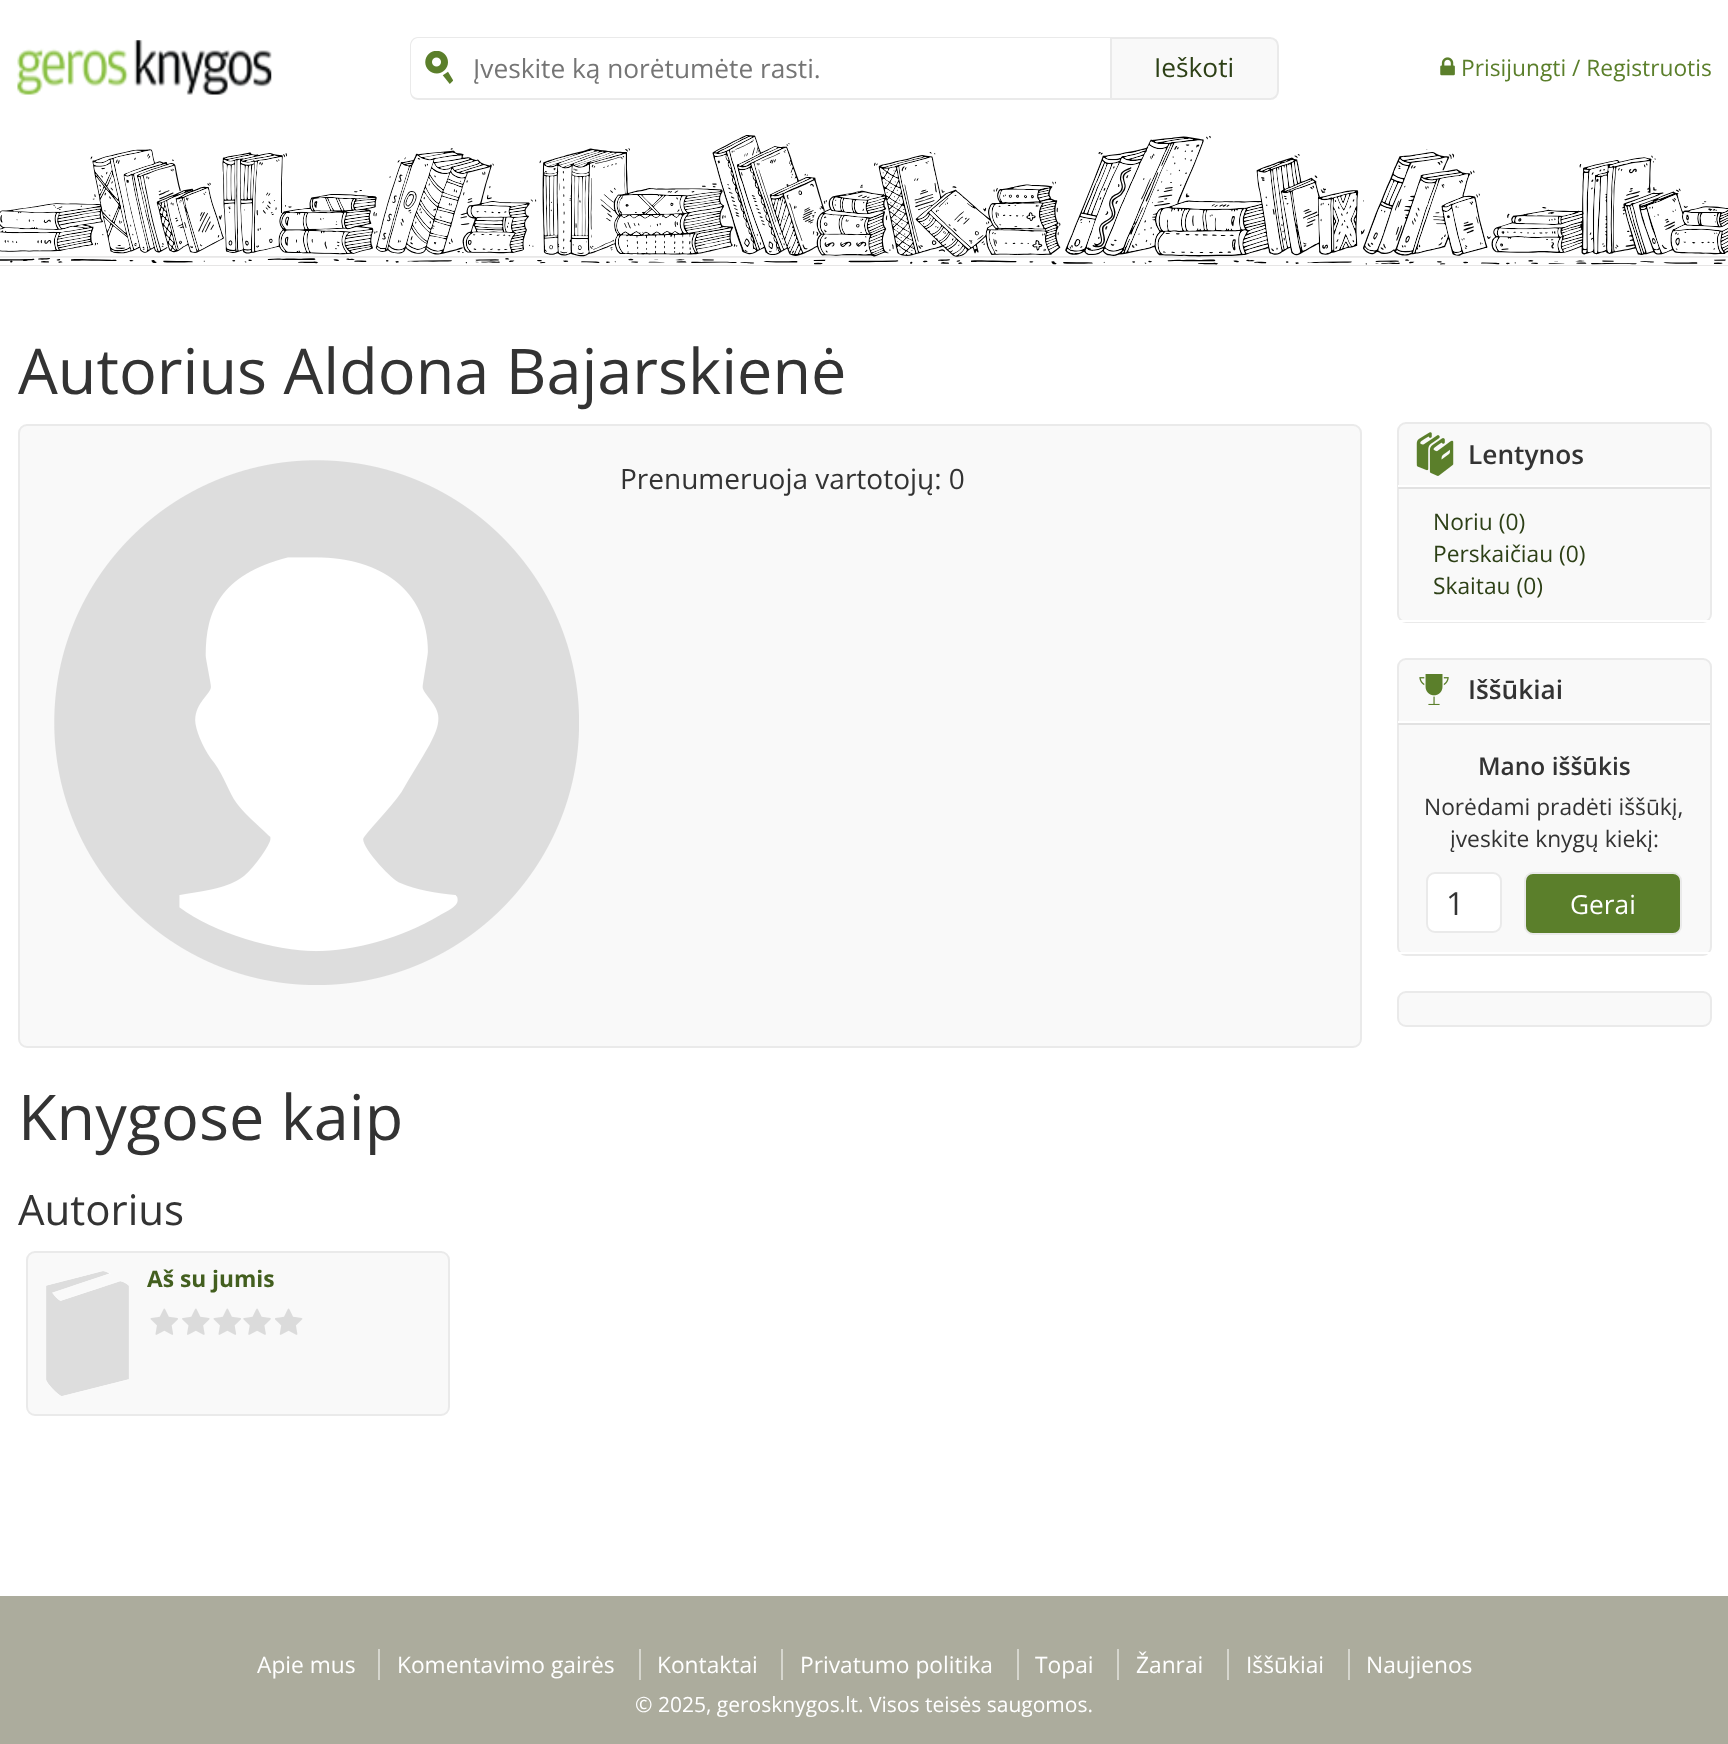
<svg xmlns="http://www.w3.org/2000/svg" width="1728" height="1744">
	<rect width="100%" height="100%" fill="#FFFFFF" />
	<image x="17" y="40" width="255" height="55" href="assets/img1.png" />
	<image x="425" y="51" width="28" height="33" href="assets/img2.png" />
	<path d="M418 37H1110V100H418C413 100 410 96 410 91V46C410 41 413 37 418 37ZM418 38H1110V98H418C414 98 411 95 411 91V46C411 42 414 38 418 38Z" fill="#EAEAEA" fill-rule="evenodd" />
	<text x="473" y="78" font-family="Open Sans" font-size="26.25" fill="#757575">Įveskite ką norėtumėte rasti.</text>
	<path d="M1111 38H1270C1274.5 38 1278 41.5 1278 46V91C1278 95.5 1274.5 99 1270 99H1111Z" fill="#F9F9F9" stroke="#EAEAEA" stroke-width="2" />
	<text x="1154" y="77" font-family="Open Sans" font-size="26.25" fill="#2D4016">Ieškoti</text>
	<image x="1440" y="57" width="15" height="19" href="assets/img3.png" />
	<text x="1461" y="76" font-family="Open Sans" font-size="22.75" fill="#5B7F2B">Prisijungti / Registruotis</text>
	<image x="0" y="135" width="1728" height="131" href="assets/img4.png" />
	<text x="18" y="394" font-family="Open Sans" font-size="63" fill="#333333">Autorius Aldona Bajarskienė</text>
	<rect x="19" y="425" width="1342" height="622" rx="8" fill="#F9F9F9" stroke="#EAEAEA" stroke-width="2" />
	<image x="54" y="460" width="525" height="525" href="assets/img5.png" />
	<text x="620" y="489" font-family="Open Sans" font-size="28" fill="#333333">Prenumeruoja vartotojų: 0</text>
	<text x="18" y="1140" font-family="Open Sans" font-size="63" fill="#333333">Knygose kaip</text>
	<text x="18" y="1225" font-family="Open Sans" font-size="42" fill="#333333">Autorius</text>
	<rect x="27" y="1252" width="422" height="163" rx="8" fill="#F9F9F9" stroke="#EAEAEA" stroke-width="2" />
	<image x="46" y="1271" width="83" height="125" href="assets/img6.png" />
	<text x="147" y="1287" font-family="Open Sans" font-size="22.75" font-weight="700" fill="#435F1F">Aš su jumis</text>
	<image x="150" y="1308" width="28" height="27" href="assets/img7.png" />
	<image x="182" y="1308" width="28" height="27" href="assets/img8.png" />
	<image x="213" y="1308" width="28" height="27" href="assets/img7.png" />
	<image x="243" y="1308" width="28" height="27" href="assets/img9.png" />
	<image x="275" y="1308" width="28" height="27" href="assets/img10.png" />
	<rect x="1398" y="423" width="313" height="199" rx="8" fill="#F9F9F9" stroke="#EAEAEA" stroke-width="2" />
	<image x="1416" y="432" width="38" height="44" href="assets/img11.png" />
	<rect x="1398" y="485" width="312" height="2" fill="#FFFFFF" />
	<text x="1468" y="464" font-family="Open Sans" font-size="26.25" font-weight="600" fill="#333333">Lentynos</text>
	<rect x="1398" y="487" width="312" height="2" fill="#E2E2E2" />
	<rect x="1398" y="620" width="312" height="2" fill="#FFFFFF" />
	<g font-family="Open Sans" font-size="22.75" fill="#2D4016">
		<text x="1433" y="530">Noriu (0)</text>
		<text x="1433" y="562">Perskaičiau (0)</text>
		<text x="1433" y="594">Skaitau (0)</text>
	</g>
	<rect x="1398" y="659" width="313" height="296" rx="8" fill="#F9F9F9" stroke="#EAEAEA" stroke-width="2" />
	<image x="1419" y="674" width="30" height="31" href="assets/img12.png" />
	<rect x="1398" y="721" width="312" height="2" fill="#FFFFFF" />
	<text x="1468" y="699" font-family="Open Sans" font-size="26.25" font-weight="600" fill="#333333">Iššūkiai</text>
	<rect x="1398" y="723" width="312" height="2" fill="#E2E2E2" />
	<rect x="1398" y="952" width="312" height="2" fill="#FFFFFF" />
	<text x="1478" y="775" font-family="Open Sans" font-size="24.5" font-weight="600" fill="#333333">Mano iššūkis</text>
	<g font-family="Open Sans" font-size="22.75" fill="#333333">
		<text x="1424" y="815">Norėdami pradėti iššūkį,</text>
		<text x="1450" y="847">įveskite knygų kiekį:</text>
	</g>
	<rect x="1427" y="873" width="74" height="59" rx="8" fill="#FFFFFF" stroke="#EAEAEA" stroke-width="2" />
	<text x="1446" y="915" font-family="Open Sans" font-size="32" fill="#333333">1</text>
	<rect x="1525" y="873" width="156" height="61" rx="8" fill="#5B7F2B" stroke="#EAEAEA" stroke-width="2" />
	<text x="1570" y="914" font-family="Open Sans" font-size="26.25" fill="#FFFFFF">Gerai</text>
	<rect x="1398" y="992" width="313" height="34" rx="8" fill="#F9F9F9" stroke="#EAEAEA" stroke-width="2" />
	<rect x="0" y="1596" width="1728" height="148" fill="#ACAC9D" />
	<g font-family="Open Sans" font-size="22.75" fill="#FFFFFF">
		<text x="257" y="1673">Apie mus</text>
		<text x="397" y="1673">Komentavimo gairės</text>
	</g>
	<rect x="378" y="1649" width="2" height="31" fill="#D6D6CE" />
	<text x="657" y="1673" font-family="Open Sans" font-size="22.75" fill="#FFFFFF">Kontaktai</text>
	<rect x="639" y="1649" width="2" height="31" fill="#D6D6CE" />
	<text x="800" y="1673" font-family="Open Sans" font-size="22.75" fill="#FFFFFF">Privatumo politika</text>
	<rect x="781" y="1649" width="2" height="31" fill="#D6D6CE" />
	<text x="1035" y="1673" font-family="Open Sans" font-size="22.75" fill="#FFFFFF">Topai</text>
	<rect x="1017" y="1649" width="2" height="31" fill="#D6D6CE" />
	<text x="1136" y="1673" font-family="Open Sans" font-size="22.75" fill="#FFFFFF">Žanrai</text>
	<rect x="1117" y="1649" width="2" height="31" fill="#D6D6CE" />
	<text x="1246" y="1673" font-family="Open Sans" font-size="22.75" fill="#FFFFFF">Iššūkiai</text>
	<rect x="1227" y="1649" width="2" height="31" fill="#D6D6CE" />
	<text x="1366" y="1673" font-family="Open Sans" font-size="22.75" fill="#FFFFFF">Naujienos</text>
	<rect x="1348" y="1649" width="2" height="31" fill="#D6D6CE" />
	<text x="635" y="1712" font-family="Open Sans" font-size="21" fill="#FFFFFF">© 2025, gerosknygos.lt. Visos teisės saugomos.</text>
</svg>
